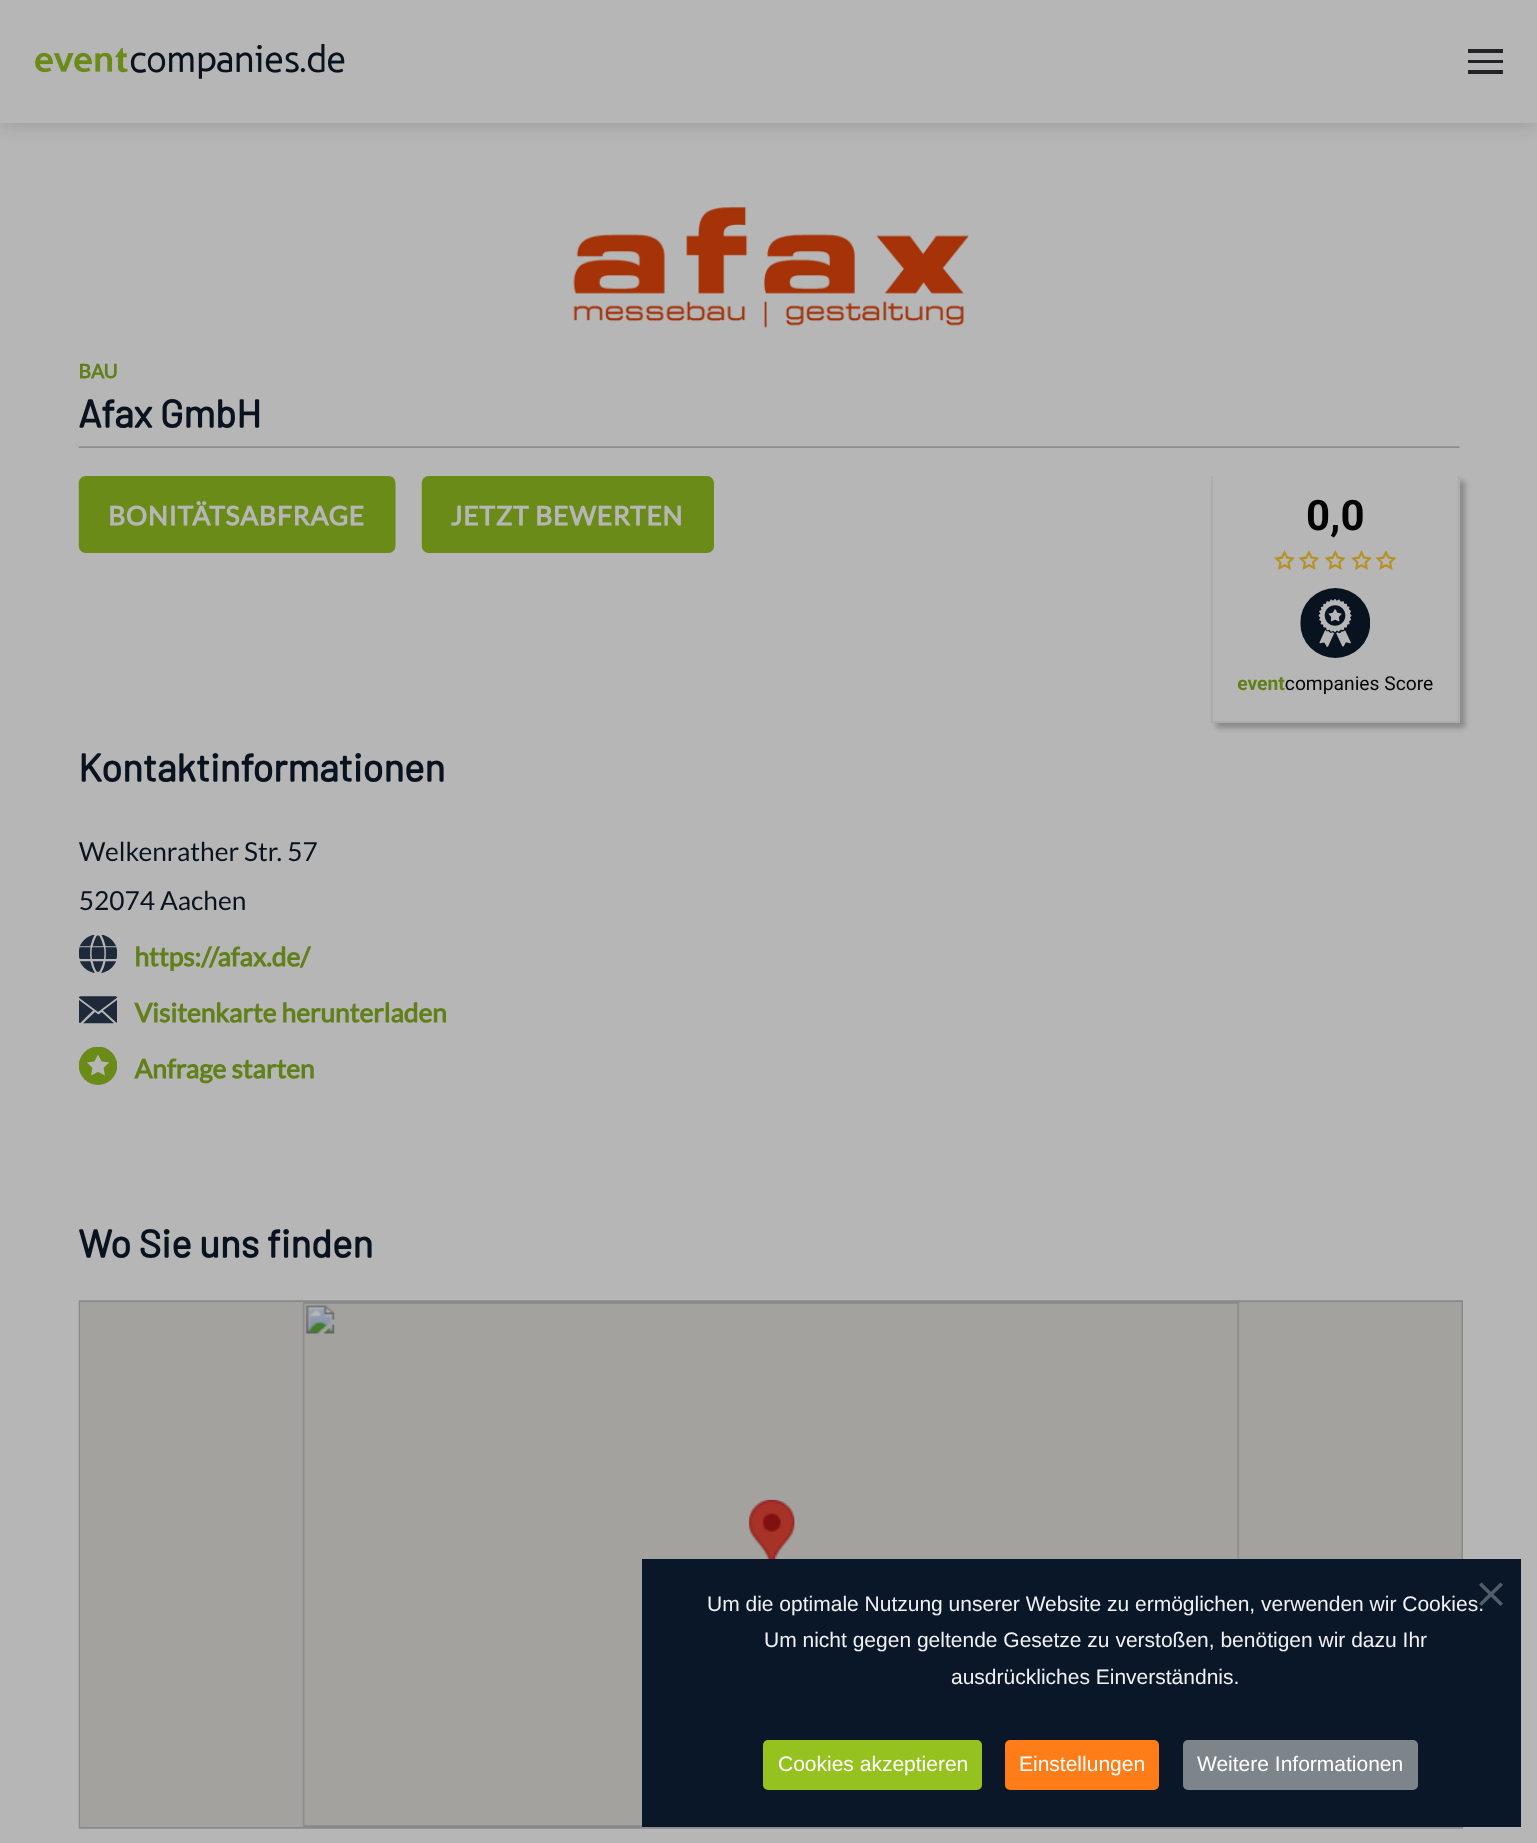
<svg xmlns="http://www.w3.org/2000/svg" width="1537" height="1843">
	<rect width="100%" height="100%" fill="#B6B6B6" />
	<rect x="0" y="4" width="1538" height="122" fill="#09131F" fill-opacity="0.15" filter="blur(9px)" />
	<rect x="0" y="0" width="1537" height="123" fill="#B6B6B6" />
	<image x="35" y="44" width="310" height="35" href="assets/img1.png" />
	<rect x="1468" y="49" width="35" height="4" fill="#232327" />
	<rect x="1468" y="60" width="35" height="3" fill="#232327" />
	<rect x="1468" y="70" width="35" height="4" fill="#232327" />
	<image x="35" y="158" width="1468" height="1685" href="assets/img2.png" />
	<rect x="642" y="1559" width="879" height="268" fill="#091728" />
	<g font-family="Liberation Sans" font-size="21" fill="#F1F1F3">
		<text x="707" y="1611">Um die optimale Nutzung unserer Website zu ermöglichen, verwenden wir Cookies.</text>
		<text x="764" y="1647">Um nicht gegen geltende Gesetze zu verstoßen, benötigen wir dazu Ihr</text>
		<text x="951" y="1684">ausdrückliches Einverständnis.</text>
	</g>
	<path d="M1500.5 1582.5L1503 1585L1481.5 1606L1479 1603.5Z" fill="#535D69" />
	<path d="M1479 1585L1481.5 1582.5L1503 1603.5L1500.5 1606Z" fill="#535D69" />
	<rect x="763" y="1740" width="219" height="50" rx="5" fill="#95C21F" />
	<text x="778" y="1771" font-family="Liberation Sans" font-size="21" fill="#FFFFFF">Cookies akzeptieren</text>
	<rect x="1005" y="1740" width="154" height="50" rx="5" fill="#FE7D19" />
	<text x="1019" y="1771" font-family="Liberation Sans" font-size="21" fill="#FFFFFF">Einstellungen</text>
	<rect x="1183" y="1740" width="235" height="50" rx="5" fill="#7E858A" />
	<text x="1197" y="1771" font-family="Liberation Sans" font-size="21" fill="#FFFFFF">Weitere Informationen</text>
</svg>
